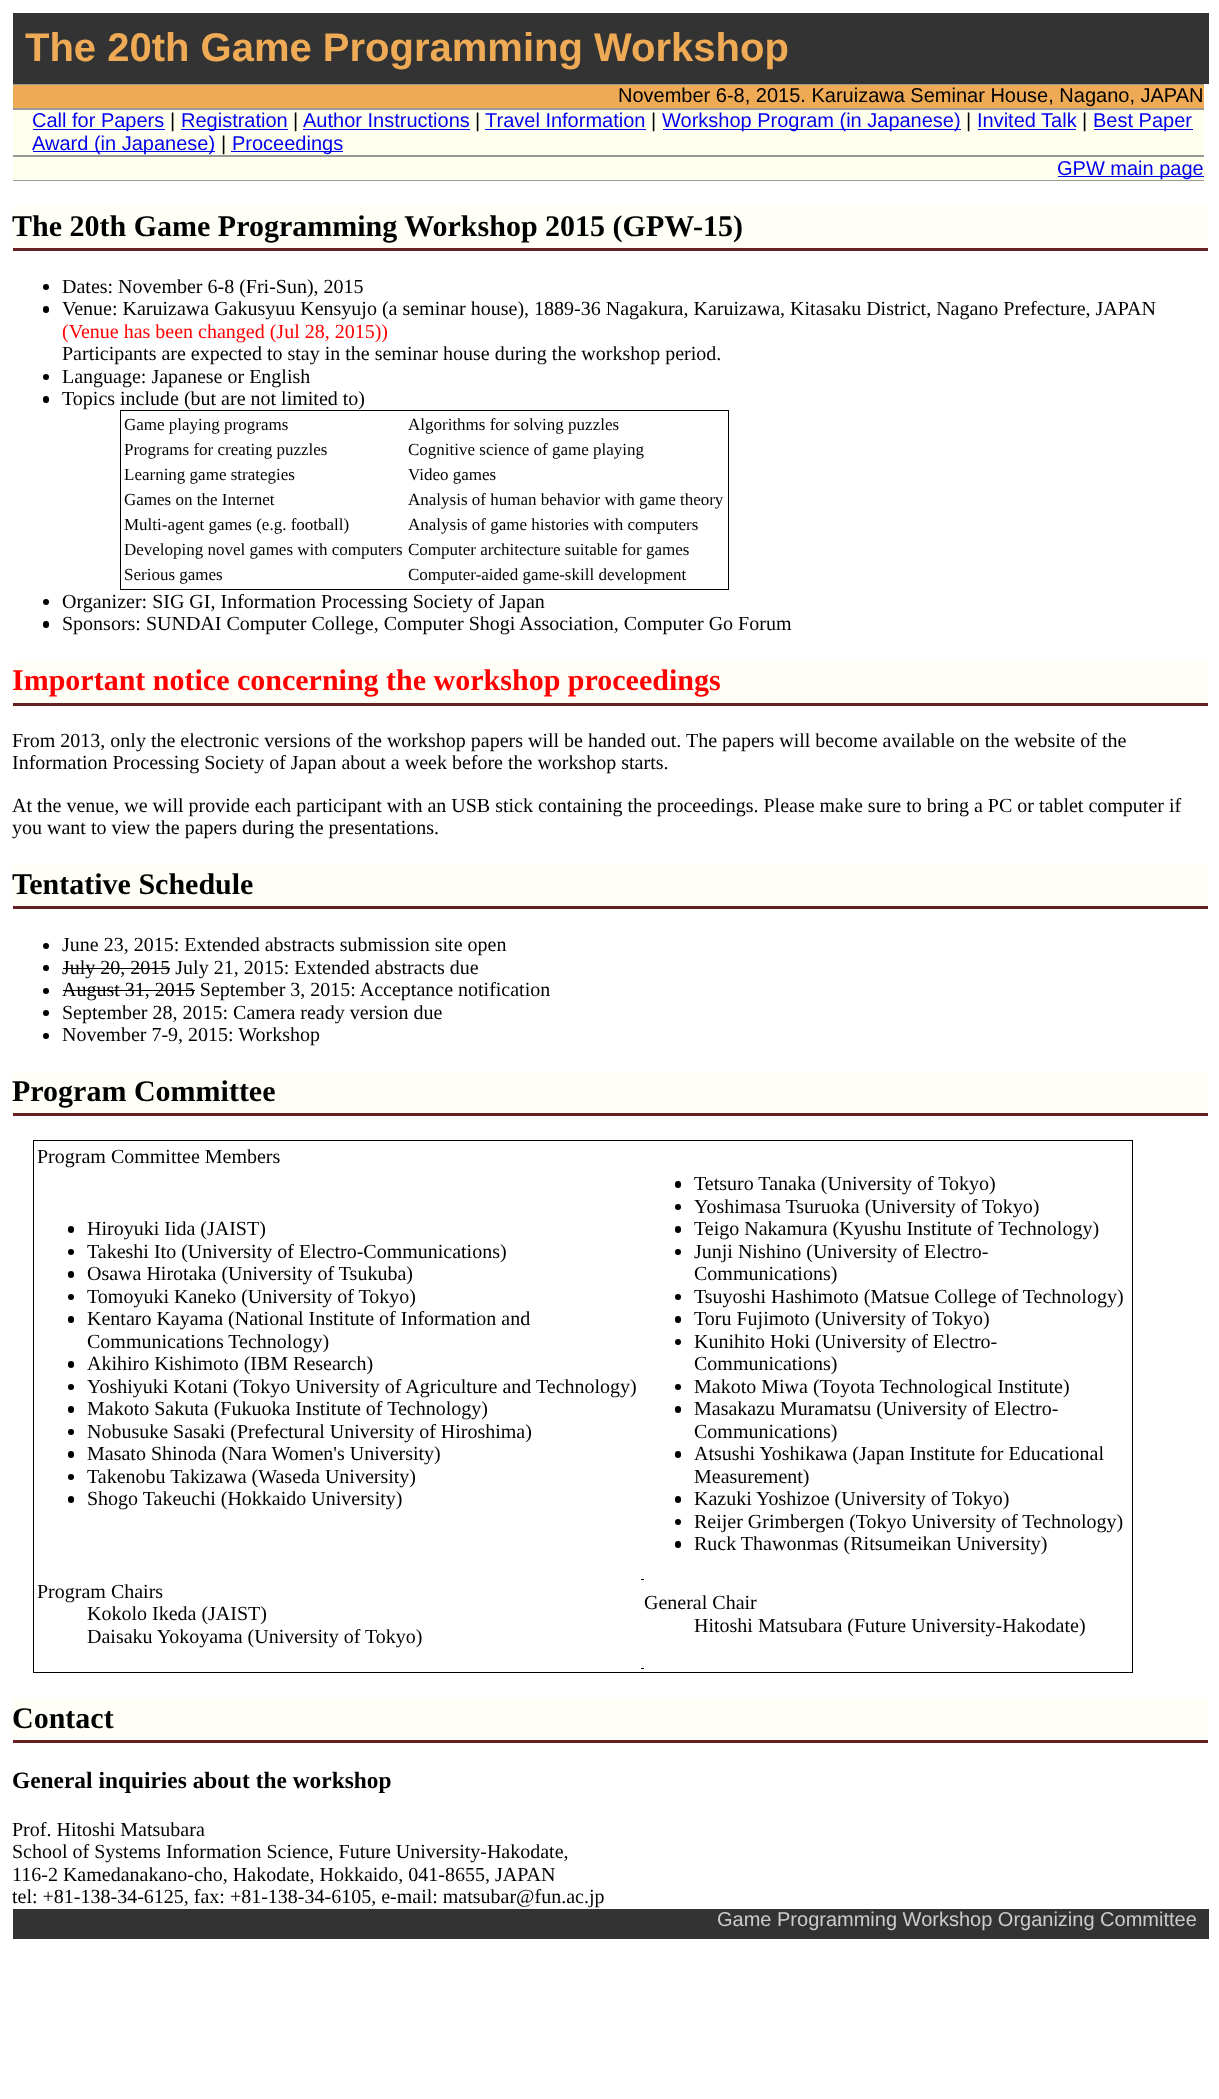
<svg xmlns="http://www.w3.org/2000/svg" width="1219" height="2099">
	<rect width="100%" height="100%" fill="#FFFFFF" />
	<rect x="13" y="13" width="1196" height="71" fill="#333333" />
	<text x="25" y="61" font-family="Liberation Sans" font-size="40" font-weight="700" fill="#EEAA55">The 20th Game Programming Workshop</text>
	<rect x="13" y="85" width="1191" height="23" fill="#EEAA55" />
	<rect x="13" y="84" width="1191" height="1" fill="#999999" />
	<rect x="13" y="108" width="1191" height="2" fill="#999999" />
	<text x="618" y="102" font-family="Liberation Sans" font-size="20" fill="#000000">November 6-8, 2015. Karuizawa Seminar House, Nagano, JAPAN</text>
	<rect x="13" y="110" width="1191" height="45" fill="#FFFFEE" />
	<rect x="13" y="155" width="1191" height="2" fill="#999999" />
	<rect x="33" y="129" width="132" height="1" fill="#0000EE" />
	<text x="32" y="127" font-family="Liberation Sans" font-size="20" fill="#0000EE">Call for Papers</text>
	<text x="170" y="127" font-family="Liberation Sans" font-size="20" fill="#000000">|</text>
	<rect x="181" y="129" width="107" height="1" fill="#0000EE" />
	<text x="181" y="127" font-family="Liberation Sans" font-size="20" fill="#0000EE">Registration</text>
	<text x="293" y="127" font-family="Liberation Sans" font-size="20" fill="#000000">|</text>
	<text x="303" y="127" font-family="Liberation Sans" font-size="20" fill="#0000EE">Author Instructions</text>
	<rect x="303" y="129" width="167" height="1" fill="#0000EE" />
	<text x="475" y="127" font-family="Liberation Sans" font-size="20" fill="#000000">|</text>
	<text x="485" y="127" font-family="Liberation Sans" font-size="20" fill="#0000EE">Travel Information</text>
	<rect x="485" y="129" width="161" height="1" fill="#0000EE" />
	<text x="651" y="127" font-family="Liberation Sans" font-size="20" fill="#000000">|</text>
	<rect x="663" y="129" width="298" height="1" fill="#0000EE" />
	<text x="662" y="127" font-family="Liberation Sans" font-size="20" fill="#0000EE">Workshop Program (in Japanese)</text>
	<text x="966" y="127" font-family="Liberation Sans" font-size="20" fill="#000000">|</text>
	<text x="977" y="127" font-family="Liberation Sans" font-size="20" fill="#0000EE">Invited Talk</text>
	<rect x="978" y="129" width="98" height="1" fill="#0000EE" />
	<text x="1082" y="127" font-family="Liberation Sans" font-size="20" fill="#000000">|</text>
	<rect x="1094" y="129" width="99" height="1" fill="#0000EE" />
	<text x="1093" y="127" font-family="Liberation Sans" font-size="20" fill="#0000EE">Best Paper</text>
	<rect x="33" y="151" width="182" height="1" fill="#0000EE" />
	<text x="32" y="150" font-family="Liberation Sans" font-size="20" fill="#0000EE">Award (in Japanese)</text>
	<text x="221" y="150" font-family="Liberation Sans" font-size="20" fill="#000000">|</text>
	<rect x="231" y="151" width="112" height="1" fill="#0000EE" />
	<text x="232" y="150" font-family="Liberation Sans" font-size="20" fill="#0000EE">Proceedings</text>
	<rect x="13" y="157" width="1191" height="23" fill="#FFFFEE" />
	<rect x="13" y="180" width="1191" height="1" fill="#999999" />
	<rect x="1058" y="176" width="146" height="1" fill="#0000EE" />
	<text x="1057" y="175" font-family="Liberation Sans" font-size="20" fill="#0000EE">GPW main page</text>
	<rect x="13" y="206" width="1195" height="42" fill="#FFFFF8" />
	<rect x="13" y="248" width="1195" height="3" fill="#662222" />
	<text x="12" y="236" font-family="Liberation Serif" font-size="30" font-weight="700" fill="#000000">The 20th Game Programming Workshop 2015 (GPW-15)</text>
	<circle cx="46" cy="287" r="3" fill="#000000" />
	<text x="62" y="293" font-family="Liberation Serif" font-size="20" fill="#000000">Dates: November 6-8 (Fri-Sun), 2015</text>
	<rect x="43" y="306" width="6" height="7" rx="3" fill="#000000" />
	<text x="62" y="315" font-family="Liberation Serif" font-size="20" fill="#000000">Venue: Karuizawa Gakusyuu Kensyujo (a seminar house), 1889-36 Nagakura, Karuizawa, Kitasaku District, Nagano Prefecture, JAPAN</text>
	<text x="62" y="338" font-family="Liberation Serif" font-size="20" fill="#FF0000">(Venue has been changed (Jul 28, 2015))</text>
	<text x="62" y="360" font-family="Liberation Serif" font-size="20" fill="#000000">Participants are expected to stay in the seminar house during the workshop period.</text>
	<circle cx="46" cy="377" r="3" fill="#000000" />
	<text x="62" y="383" font-family="Liberation Serif" font-size="20" fill="#000000">Language: Japanese or English</text>
	<rect x="43" y="396" width="6" height="7" rx="3" fill="#000000" />
	<text x="62" y="405" font-family="Liberation Serif" font-size="20" fill="#000000">Topics include (but are not limited to)</text>
	<rect x="120.5" y="410.5" width="608" height="179" fill="none" stroke="#000000" />
	<g font-family="Liberation Serif" font-size="17" fill="#000000">
		<text x="124" y="430">Game playing programs</text>
		<text x="408" y="430">Algorithms for solving puzzles</text>
		<text x="124" y="455">Programs for creating puzzles</text>
		<text x="408" y="455">Cognitive science of game playing</text>
		<text x="124" y="480">Learning game strategies</text>
		<text x="408" y="480">Video games</text>
		<text x="124" y="505">Games on the Internet</text>
		<text x="408" y="505">Analysis of human behavior with game theory</text>
		<text x="124" y="530">Multi-agent games (e.g. football)</text>
		<text x="408" y="530">Analysis of game histories with computers</text>
		<text x="124" y="555">Developing novel games with computers</text>
		<text x="408" y="555">Computer architecture suitable for games</text>
		<text x="124" y="580">Serious games</text>
		<text x="408" y="580">Computer-aided game-skill development</text>
	</g>
	<circle cx="46" cy="602" r="3" fill="#000000" />
	<text x="62" y="608" font-family="Liberation Serif" font-size="20" fill="#000000">Organizer: SIG GI, Information Processing Society of Japan</text>
	<rect x="43" y="621" width="6" height="7" rx="3" fill="#000000" />
	<text x="62" y="630" font-family="Liberation Serif" font-size="20" fill="#000000">Sponsors: SUNDAI Computer College, Computer Shogi Association, Computer Go Forum</text>
	<rect x="13" y="660" width="1195" height="43" fill="#FFFFF8" />
	<rect x="13" y="703" width="1195" height="3" fill="#662222" />
	<text x="12" y="690" font-family="Liberation Serif" font-size="30" font-weight="700" fill="#FF0000">Important notice concerning the workshop proceedings</text>
	<g font-family="Liberation Serif" font-size="20" fill="#000000">
		<text x="12" y="747">From 2013, only the electronic versions of the workshop papers will be handed out. The papers will become available on the website of the</text>
		<text x="12" y="769">Information Processing Society of Japan about a week before the workshop starts.</text>
		<text x="12" y="812">At the venue, we will provide each participant with an USB stick containing the proceedings. Please make sure to bring a PC or tablet computer if</text>
		<text x="12" y="834">you want to view the papers during the presentations.</text>
	</g>
	<rect x="13" y="864" width="1195" height="42" fill="#FFFFF8" />
	<rect x="13" y="906" width="1195" height="3" fill="#662222" />
	<text x="12" y="894" font-family="Liberation Serif" font-size="30" font-weight="700" fill="#000000">Tentative Schedule</text>
	<circle cx="46" cy="946" r="3" fill="#000000" />
	<text x="62" y="951" font-family="Liberation Serif" font-size="20" fill="#000000">June 23, 2015: Extended abstracts submission site open</text>
	<circle cx="46" cy="968" r="3" fill="#000000" />
	<text x="62" y="974" font-family="Liberation Serif" font-size="20" fill="#000000">July 20, 2015 July 21, 2015: Extended abstracts due</text>
	<rect x="63" y="968" width="107" height="1" fill="#000000" />
	<circle cx="46" cy="991" r="3" fill="#000000" />
	<text x="62" y="996" font-family="Liberation Serif" font-size="20" fill="#000000">August 31, 2015 September 3, 2015: Acceptance notification</text>
	<rect x="63" y="990" width="132" height="1" fill="#000000" />
	<circle cx="46" cy="1013" r="3" fill="#000000" />
	<text x="62" y="1019" font-family="Liberation Serif" font-size="20" fill="#000000">September 28, 2015: Camera ready version due</text>
	<circle cx="46" cy="1036" r="3" fill="#000000" />
	<text x="62" y="1041" font-family="Liberation Serif" font-size="20" fill="#000000">November 7-9, 2015: Workshop</text>
	<rect x="13" y="1071" width="1195" height="42" fill="#FFFFF8" />
	<rect x="13" y="1113" width="1195" height="3" fill="#662222" />
	<text x="12" y="1101" font-family="Liberation Serif" font-size="30" font-weight="700" fill="#000000">Program Committee</text>
	<rect x="33.5" y="1140.5" width="1099" height="532" fill="none" stroke="#000000" />
	<text x="37" y="1163" font-family="Liberation Serif" font-size="20" fill="#000000">Program Committee Members</text>
	<rect x="68" y="1226" width="6" height="7" rx="3" fill="#000000" />
	<text x="87" y="1235" font-family="Liberation Serif" font-size="20" fill="#000000">Hiroyuki Iida (JAIST)</text>
	<circle cx="71" cy="1252" r="3" fill="#000000" />
	<text x="87" y="1258" font-family="Liberation Serif" font-size="20" fill="#000000">Takeshi Ito (University of Electro-Communications)</text>
	<rect x="68" y="1271" width="6" height="7" rx="3" fill="#000000" />
	<text x="87" y="1280" font-family="Liberation Serif" font-size="20" fill="#000000">Osawa Hirotaka (University of Tsukuba)</text>
	<circle cx="71" cy="1297" r="3" fill="#000000" />
	<text x="87" y="1303" font-family="Liberation Serif" font-size="20" fill="#000000">Tomoyuki Kaneko (University of Tokyo)</text>
	<rect x="68" y="1316" width="6" height="7" rx="3" fill="#000000" />
	<g font-family="Liberation Serif" font-size="20" fill="#000000">
		<text x="87" y="1325">Kentaro Kayama (National Institute of Information and</text>
		<text x="87" y="1348">Communications Technology)</text>
	</g>
	<rect x="68" y="1361" width="6" height="7" rx="3" fill="#000000" />
	<text x="87" y="1370" font-family="Liberation Serif" font-size="20" fill="#000000">Akihiro Kishimoto (IBM Research)</text>
	<circle cx="71" cy="1387" r="3" fill="#000000" />
	<text x="87" y="1393" font-family="Liberation Serif" font-size="20" fill="#000000">Yoshiyuki Kotani (Tokyo University of Agriculture and Technology)</text>
	<rect x="68" y="1406" width="6" height="7" rx="3" fill="#000000" />
	<text x="87" y="1415" font-family="Liberation Serif" font-size="20" fill="#000000">Makoto Sakuta (Fukuoka Institute of Technology)</text>
	<circle cx="71" cy="1432" r="3" fill="#000000" />
	<text x="87" y="1438" font-family="Liberation Serif" font-size="20" fill="#000000">Nobusuke Sasaki (Prefectural University of Hiroshima)</text>
	<rect x="68" y="1451" width="6" height="7" rx="3" fill="#000000" />
	<text x="87" y="1460" font-family="Liberation Serif" font-size="20" fill="#000000">Masato Shinoda (Nara Women's University)</text>
	<circle cx="71" cy="1477" r="3" fill="#000000" />
	<text x="87" y="1483" font-family="Liberation Serif" font-size="20" fill="#000000">Takenobu Takizawa (Waseda University)</text>
	<rect x="68" y="1496" width="6" height="7" rx="3" fill="#000000" />
	<text x="87" y="1505" font-family="Liberation Serif" font-size="20" fill="#000000">Shogo Takeuchi (Hokkaido University)</text>
	<rect x="675" y="1181" width="6" height="7" rx="3" fill="#000000" />
	<text x="694" y="1190" font-family="Liberation Serif" font-size="20" fill="#000000">Tetsuro Tanaka (University of Tokyo)</text>
	<circle cx="678" cy="1207" r="3" fill="#000000" />
	<text x="694" y="1213" font-family="Liberation Serif" font-size="20" fill="#000000">Yoshimasa Tsuruoka (University of Tokyo)</text>
	<rect x="675" y="1226" width="6" height="7" rx="3" fill="#000000" />
	<text x="694" y="1235" font-family="Liberation Serif" font-size="20" fill="#000000">Teigo Nakamura (Kyushu Institute of Technology)</text>
	<circle cx="678" cy="1252" r="3" fill="#000000" />
	<g font-family="Liberation Serif" font-size="20" fill="#000000">
		<text x="694" y="1258">Junji Nishino (University of Electro-</text>
		<text x="694" y="1280">Communications)</text>
	</g>
	<circle cx="678" cy="1297" r="3" fill="#000000" />
	<text x="694" y="1303" font-family="Liberation Serif" font-size="20" fill="#000000">Tsuyoshi Hashimoto (Matsue College of Technology)</text>
	<rect x="675" y="1316" width="6" height="7" rx="3" fill="#000000" />
	<text x="694" y="1325" font-family="Liberation Serif" font-size="20" fill="#000000">Toru Fujimoto (University of Tokyo)</text>
	<circle cx="678" cy="1342" r="3" fill="#000000" />
	<g font-family="Liberation Serif" font-size="20" fill="#000000">
		<text x="694" y="1348">Kunihito Hoki (University of Electro-</text>
		<text x="694" y="1370">Communications)</text>
	</g>
	<circle cx="678" cy="1387" r="3" fill="#000000" />
	<text x="694" y="1393" font-family="Liberation Serif" font-size="20" fill="#000000">Makoto Miwa (Toyota Technological Institute)</text>
	<rect x="675" y="1406" width="6" height="7" rx="3" fill="#000000" />
	<g font-family="Liberation Serif" font-size="20" fill="#000000">
		<text x="694" y="1415">Masakazu Muramatsu (University of Electro-</text>
		<text x="694" y="1438">Communications)</text>
	</g>
	<rect x="675" y="1451" width="6" height="7" rx="3" fill="#000000" />
	<g font-family="Liberation Serif" font-size="20" fill="#000000">
		<text x="694" y="1460">Atsushi Yoshikawa (Japan Institute for Educational</text>
		<text x="694" y="1483">Measurement)</text>
	</g>
	<rect x="675" y="1496" width="6" height="7" rx="3" fill="#000000" />
	<text x="694" y="1505" font-family="Liberation Serif" font-size="20" fill="#000000">Kazuki Yoshizoe (University of Tokyo)</text>
	<circle cx="678" cy="1522" r="3" fill="#000000" />
	<text x="694" y="1528" font-family="Liberation Serif" font-size="20" fill="#000000">Reijer Grimbergen (Tokyo University of Technology)</text>
	<rect x="675" y="1541" width="6" height="7" rx="3" fill="#000000" />
	<text x="694" y="1550" font-family="Liberation Serif" font-size="20" fill="#000000">Ruck Thawonmas (Ritsumeikan University)</text>
	<rect x="36.5" y="1579.5" width="1092" height="89" fill="none" stroke="#000000" />
	<rect x="36" y="1579" width="605" height="90" fill="#FFFFFF" />
	<g font-family="Liberation Serif" font-size="20" fill="#000000">
		<text x="37" y="1598">Program Chairs</text>
		<text x="87" y="1620">Kokolo Ikeda (JAIST)</text>
		<text x="87" y="1643">Daisaku Yokoyama (University of Tokyo)</text>
	</g>
	<rect x="644" y="1579" width="485" height="90" fill="#FFFFFF" />
	<g font-family="Liberation Serif" font-size="20" fill="#000000">
		<text x="644" y="1609">General Chair</text>
		<text x="694" y="1632">Hitoshi Matsubara (Future University-Hakodate)</text>
	</g>
	<rect x="13" y="1698" width="1195" height="42" fill="#FFFFF8" />
	<rect x="13" y="1740" width="1195" height="3" fill="#662222" />
	<text x="12" y="1728" font-family="Liberation Serif" font-size="30" font-weight="700" fill="#000000">Contact</text>
	<text x="12" y="1788" font-family="Liberation Serif" font-size="23.4" font-weight="700" fill="#000000">General inquiries about the workshop</text>
	<g font-family="Liberation Serif" font-size="20" fill="#000000">
		<text x="12" y="1836">Prof. Hitoshi Matsubara</text>
		<text x="12" y="1858">School of Systems Information Science, Future University-Hakodate,</text>
		<text x="12" y="1881">116-2 Kamedanakano-cho, Hakodate, Hokkaido, 041-8655, JAPAN</text>
		<text x="12" y="1903">tel: +81-138-34-6125, fax: +81-138-34-6105, e-mail: matsubar@fun.ac.jp</text>
	</g>
	<rect x="13" y="1909" width="1196" height="30" fill="#333333" />
	<text x="717" y="1926" font-family="Liberation Sans" font-size="20" fill="#CCCCCC">Game Programming Workshop Organizing Committee</text>
</svg>
